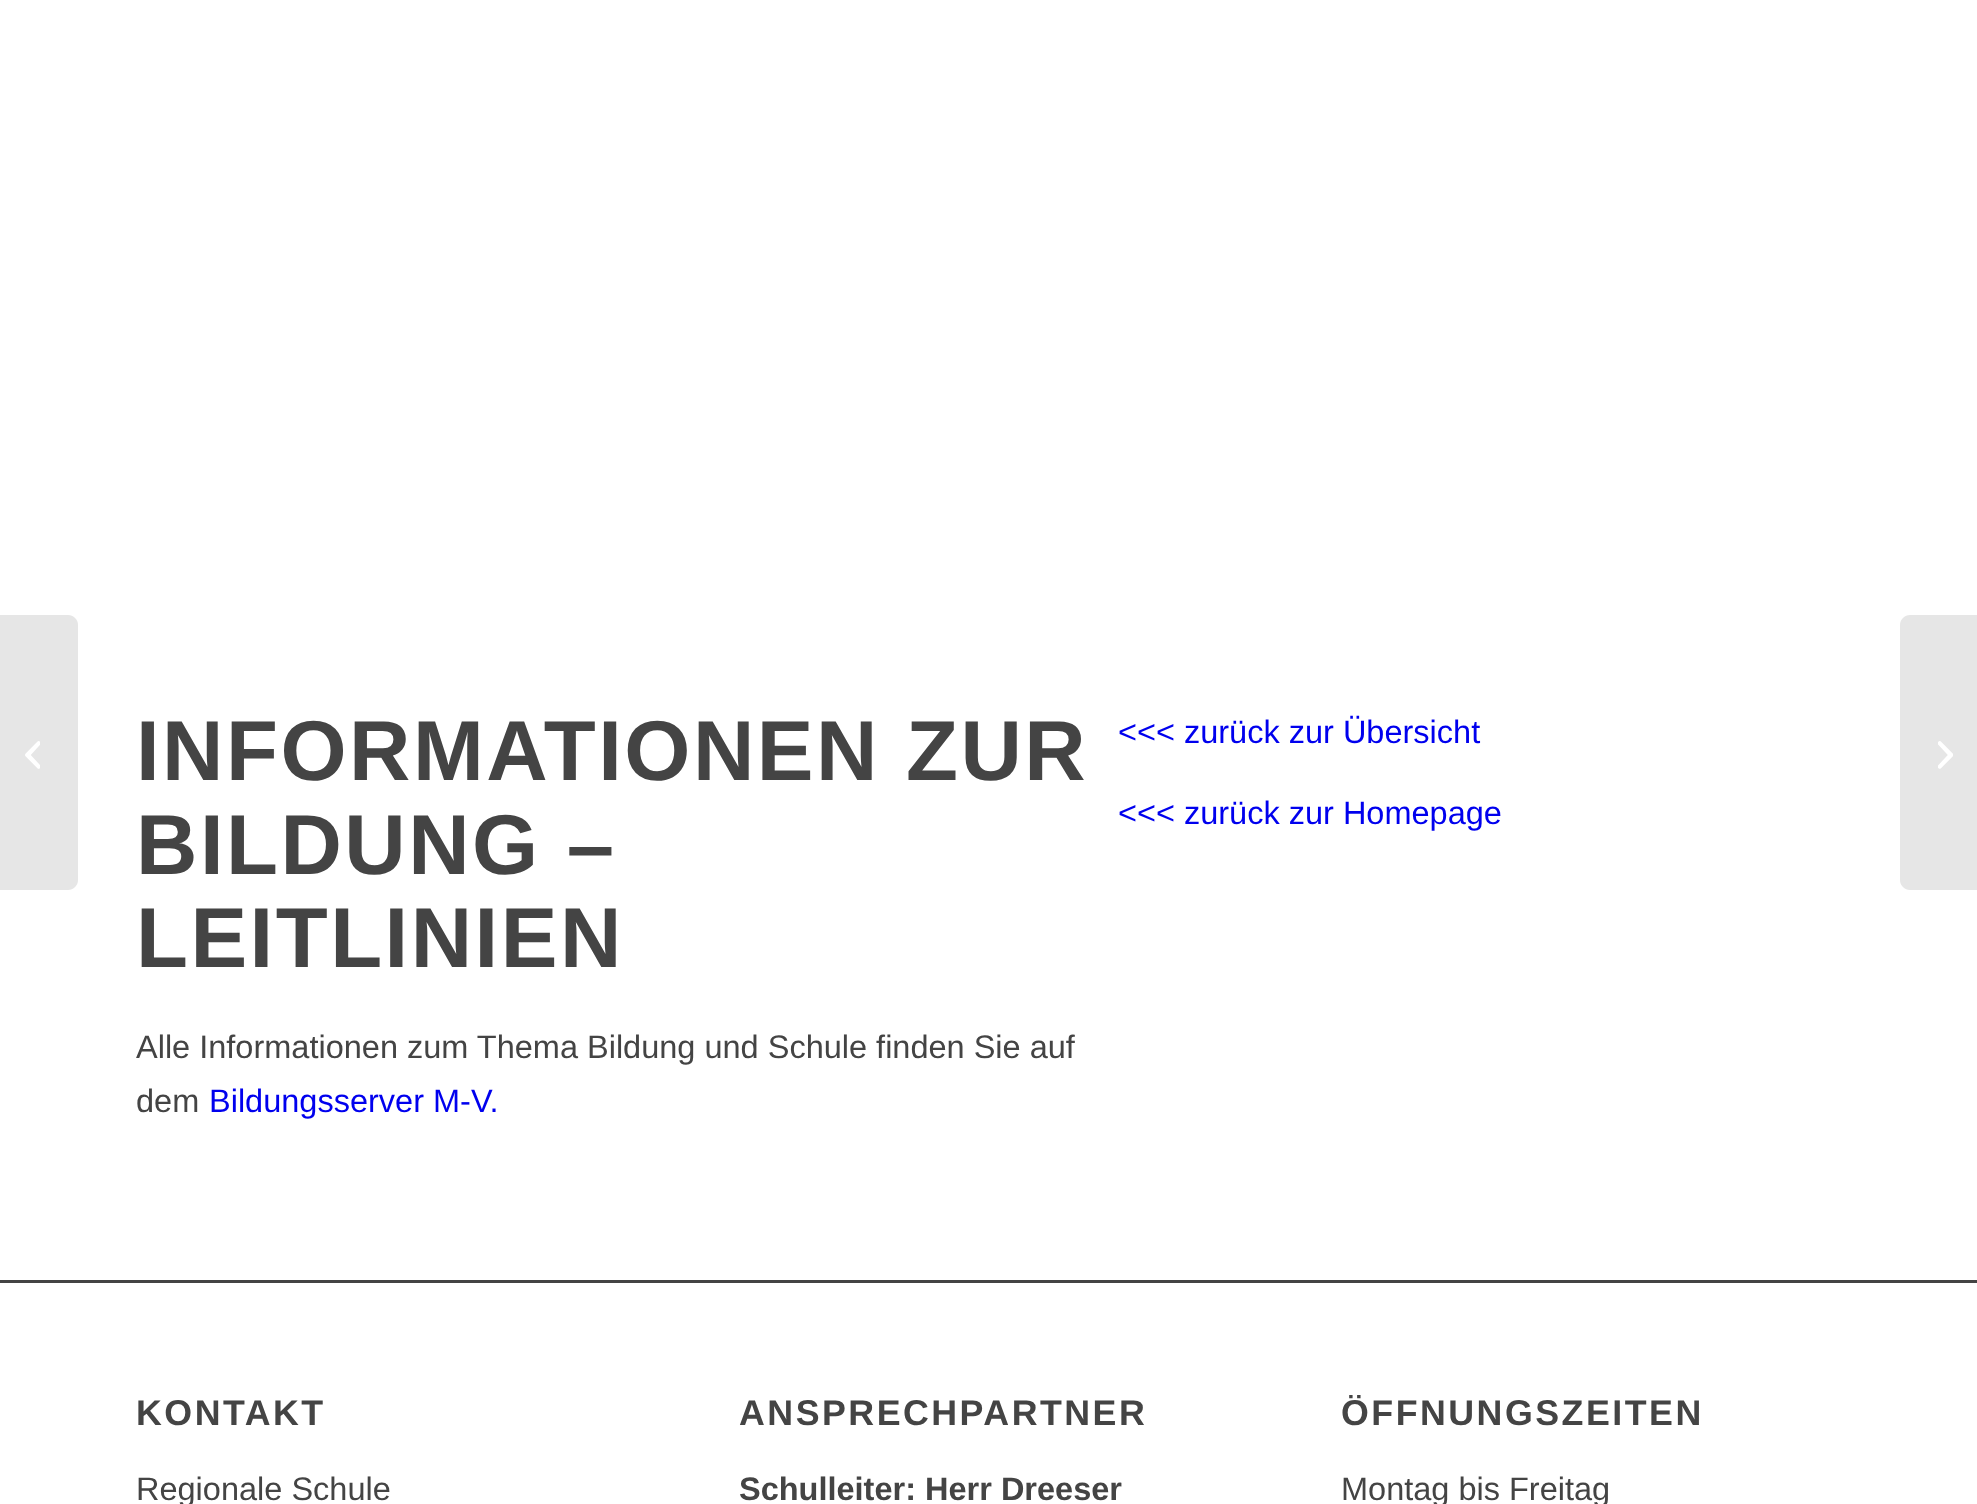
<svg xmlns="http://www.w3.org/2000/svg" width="1977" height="1504">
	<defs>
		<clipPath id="clip1"><rect x="1340" y="1395" width="500" height="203" /></clipPath>
	</defs>
	<rect width="100%" height="100%" fill="#FFFFFF" />
	<path d="M0 615H68C73.5 615 78 619.5 78 625V880C78 885.5 73.5 890 68 890H0Z" fill="#E6E6E6" />
	<image x="25" y="741" width="15" height="28" href="assets/img1.png" />
	<g font-family="Liberation Sans" font-size="85" font-weight="700" letter-spacing="2.5" fill="#444444">
		<text x="136" y="780">INFORMATIONEN ZUR</text>
		<text x="136" y="874">BILDUNG –</text>
		<text x="136" y="967">LEITLINIEN</text>
	</g>
	<g font-family="Liberation Sans" font-size="32.5" fill="#444444">
		<text x="136" y="1058">Alle Informationen zum Thema Bildung und Schule finden Sie auf</text>
		<text x="136" y="1112">dem</text>
	</g>
	<g font-family="Liberation Sans" font-size="32.5" fill="#0000EE">
		<text x="209" y="1112">Bildungsserver M-V.</text>
		<text x="1118" y="743">&lt;&lt;&lt; zurück zur Übersicht</text>
		<text x="1118" y="824">&lt;&lt;&lt; zurück zur Homepage</text>
	</g>
	<rect x="0" y="1280" width="1977" height="3" fill="#444444" />
	<text x="136" y="1425" font-family="Liberation Sans" font-size="35.75" font-weight="700" letter-spacing="2.5" fill="#444444">KONTAKT</text>
	<text x="136" y="1500" font-family="Liberation Sans" font-size="32.5" fill="#444444">Regionale Schule</text>
	<text x="739" y="1425" font-family="Liberation Sans" font-size="35.75" font-weight="700" letter-spacing="2.5" fill="#444444">ANSPRECHPARTNER</text>
	<text x="739" y="1500" font-family="Liberation Sans" font-size="32.5" font-weight="700" fill="#444444">Schulleiter: Herr Dreeser</text>
	<g clip-path="url(#clip1)">
		<text x="1341" y="1425" font-family="Liberation Sans" font-size="35.75" font-weight="700" letter-spacing="2.5" fill="#444444">ÖFFNUNGSZEITEN</text>
	</g>
	<text x="1341" y="1500" font-family="Liberation Sans" font-size="32.5" fill="#444444">Montag bis Freitag</text>
	<path d="M1910 615H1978V890H1910C1904.5 890 1900 885.5 1900 880V625C1900 619.5 1904.5 615 1910 615Z" fill="#E6E6E6" />
	<image x="1938" y="741" width="15" height="28" href="assets/img2.png" />
</svg>
